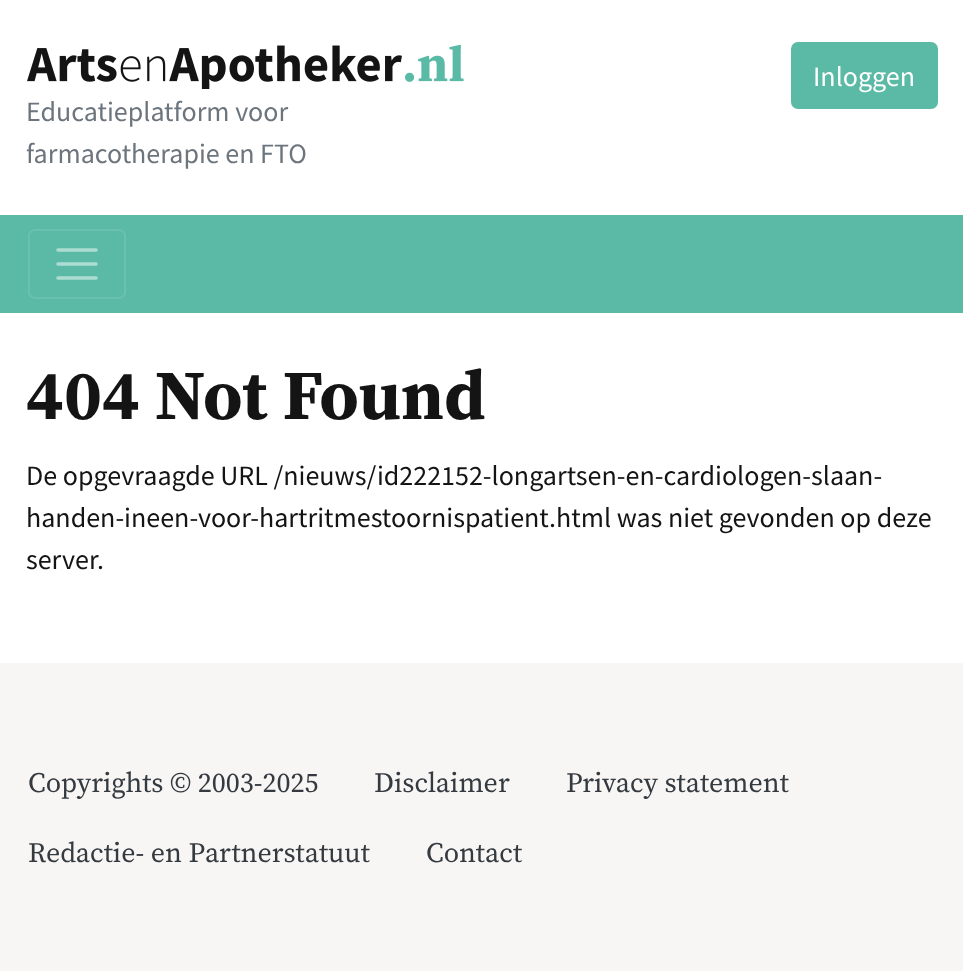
<svg xmlns="http://www.w3.org/2000/svg" width="963" height="979">
	<rect width="100%" height="100%" fill="#FFFFFF" />
	<rect x="792" y="43" width="145" height="65" rx="6" fill="#5BBAA5" stroke="#5BBAA5" stroke-width="2" />
	<text x="813" y="86" font-family="Source Sans Pro" font-size="28" fill="#FFFFFF">Inloggen</text>
	<image x="27" y="44" width="437" height="45" href="assets/img1.png" />
	<g font-family="Source Sans Pro" font-size="28" fill="#6C757D">
		<text x="26" y="121">Educatieplatform voor</text>
		<text x="26" y="163">farmacotherapie en FTO</text>
	</g>
	<rect x="0" y="215" width="963" height="98" fill="#5BBAA5" />
	<rect x="29" y="230" width="96" height="68" rx="6" fill="none" stroke="#6BC1AE" stroke-width="2" />
	<path d="M58 250H96M58 264H96M58 278H96" fill="none" stroke="#ADDDD2" stroke-width="3.5" stroke-linecap="round" />
	<text x="26" y="419" font-family="Source Serif Pro" font-size="70" font-weight="700" fill="#141414">404 Not Found</text>
	<g font-family="Source Sans Pro" font-size="28" fill="#141414">
		<text x="26" y="485">De opgevraagde URL /nieuws/id222152-longartsen-en-cardiologen-slaan-</text>
		<text x="26" y="527">handen-ineen-voor-hartritmestoornispatient.html was niet gevonden op deze</text>
		<text x="26" y="569">server.</text>
	</g>
	<rect x="0" y="663" width="963" height="308" fill="#F7F6F4" />
	<g font-family="Source Serif Pro" font-size="28" fill="#343A40">
		<text x="28" y="792">Copyrights © 2003-2025</text>
		<text x="374" y="792">Disclaimer</text>
		<text x="566" y="792">Privacy statement</text>
		<text x="28" y="862">Redactie- en Partnerstatuut</text>
		<text x="426" y="862">Contact</text>
	</g>
</svg>
